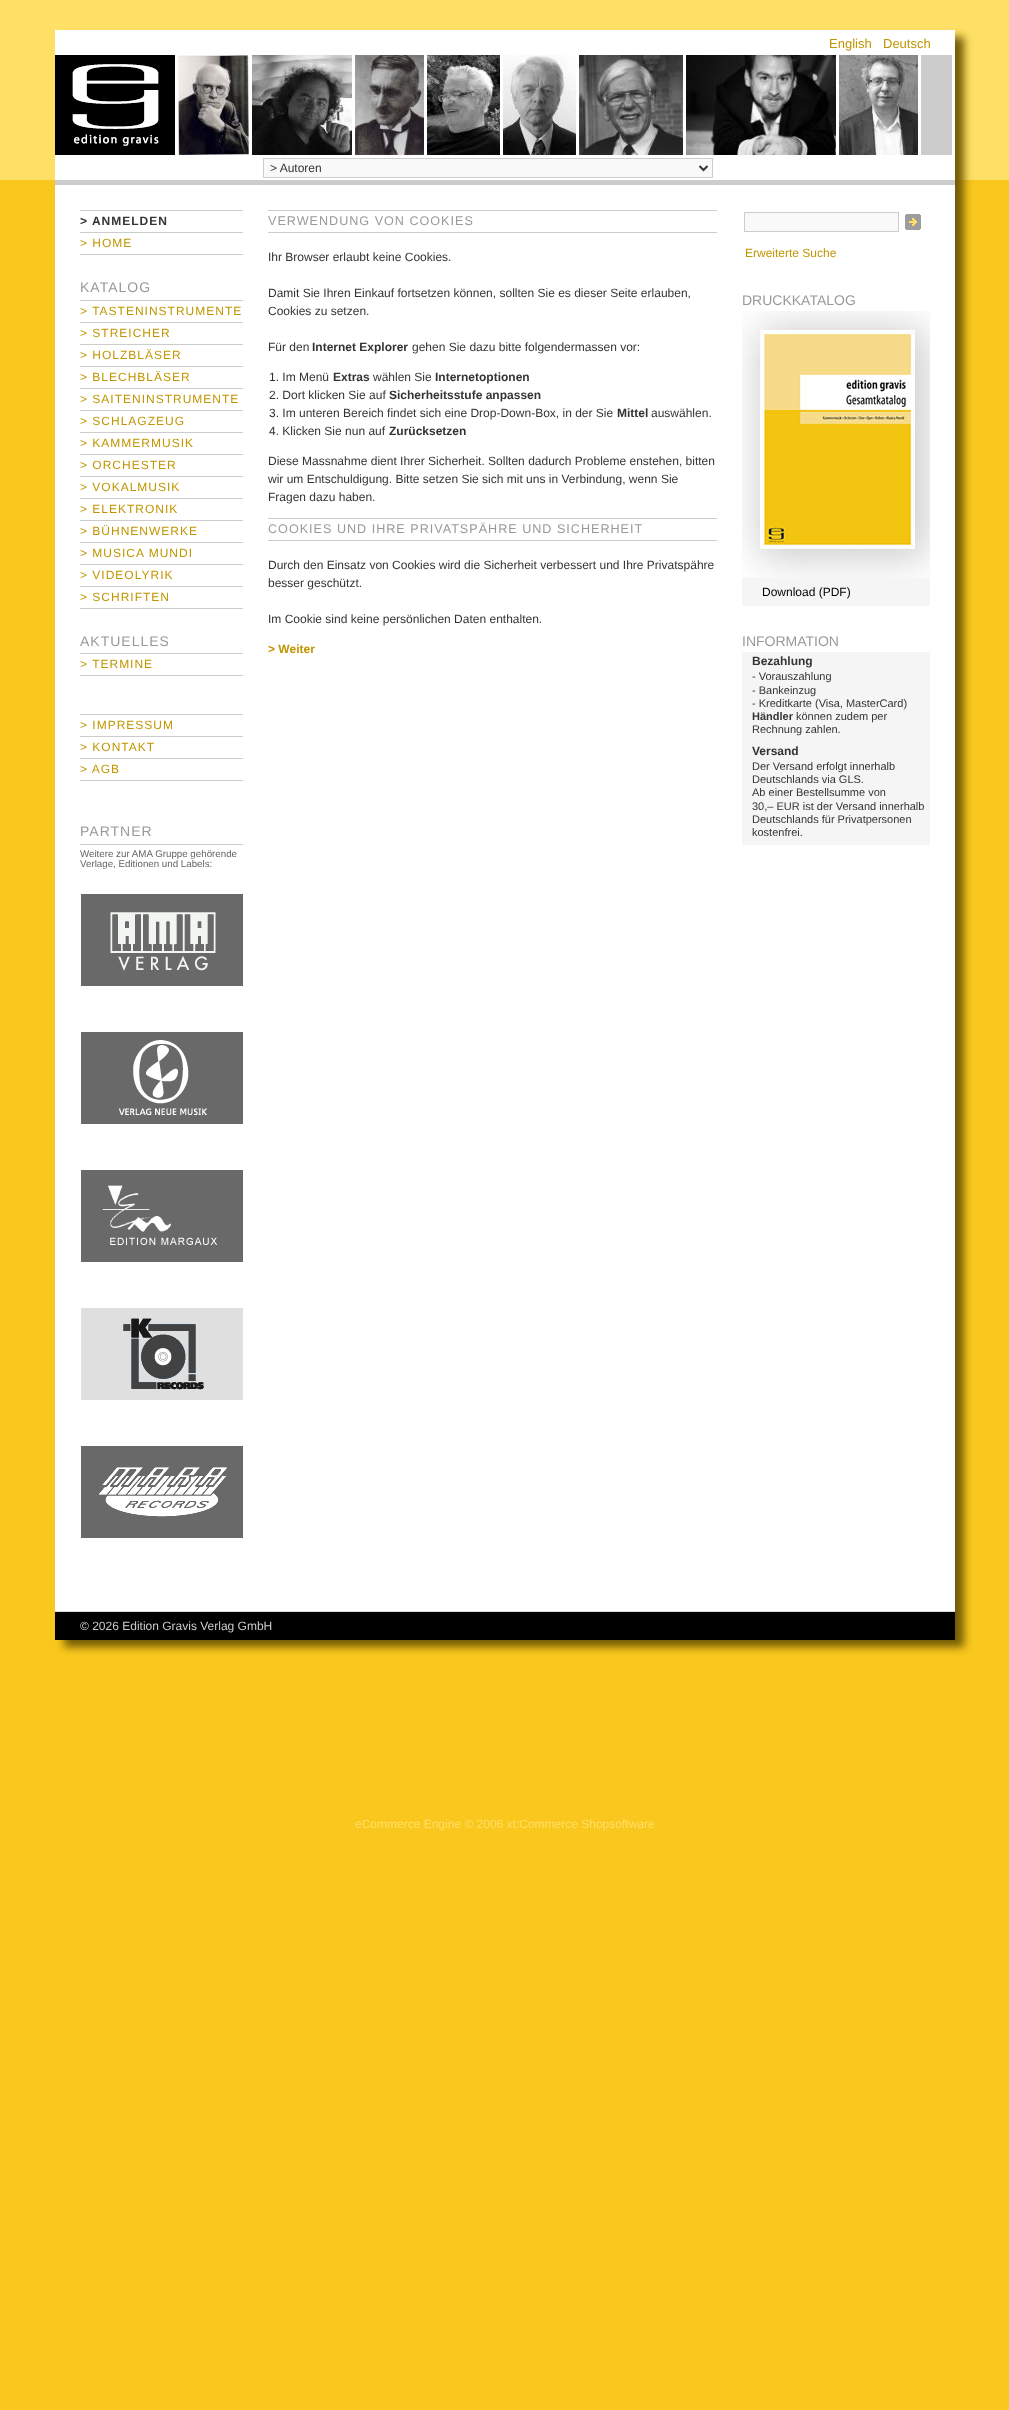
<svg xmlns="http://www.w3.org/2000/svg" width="1009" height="2410">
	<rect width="100%" height="100%" fill="#F9C71D" />
	<rect x="0" y="0" width="1009" height="180" fill="#FFE066" />
	<rect x="64" y="37" width="900" height="1610" fill="#735B06" filter="blur(4.5px)" />
	<rect x="55" y="30" width="900" height="150" fill="#FFFFFF" />
	<g font-family="Liberation Sans" font-size="13" fill="#C09500">
		<text x="829" y="48">English</text>
		<text x="883" y="48">Deutsch</text>
	</g>
	<image x="55" y="55" width="120" height="100" href="assets/img1.png" />
	<image x="178" y="55" width="71" height="100" href="assets/img2.png" />
	<image x="252" y="55" width="100" height="100" href="assets/img3.png" />
	<image x="355" y="55" width="69" height="100" href="assets/img4.png" />
	<image x="427" y="55" width="73" height="100" href="assets/img5.png" />
	<image x="503" y="55" width="73" height="100" href="assets/img6.png" />
	<image x="579" y="55" width="104" height="100" href="assets/img7.png" />
	<image x="686" y="55" width="150" height="100" href="assets/img8.png" />
	<image x="839" y="55" width="79" height="100" href="assets/img9.png" />
	<rect x="921" y="55" width="31" height="100" fill="#CCCCCC" />
	<rect x="263.5" y="158.5" width="449" height="19" fill="#F9F9F9" stroke="#CCCCCC" />
	<path d="M699.5 166L703.5 170L707.5 166" fill="none" stroke="#343336" stroke-width="2" />
	<text x="270" y="172" font-family="Liberation Sans" font-size="12" fill="#343336">&gt; Autoren</text>
	<rect x="55" y="185" width="900" height="1426" fill="#FFFFFF" />
	<rect x="55" y="180" width="900" height="5" fill="#CCCCCC" />
	<rect x="80" y="210" width="163" height="1" fill="#CCCCCC" />
	<rect x="80" y="232" width="163" height="1" fill="#CCCCCC" />
	<text x="80" y="225" font-family="Liberation Sans" font-size="12" font-weight="700" letter-spacing="1" fill="#343336">&gt; ANMELDEN</text>
	<rect x="80" y="254" width="163" height="1" fill="#CCCCCC" />
	<text x="80" y="247" font-family="Liberation Sans" font-size="12" letter-spacing="1" fill="#C09500">&gt; HOME</text>
	<text x="80" y="292" font-family="Liberation Sans" font-size="14" letter-spacing="1" fill="#999999">KATALOG</text>
	<rect x="80" y="300" width="163" height="1" fill="#CCCCCC" />
	<rect x="80" y="322" width="163" height="1" fill="#CCCCCC" />
	<text x="80" y="315" font-family="Liberation Sans" font-size="12" letter-spacing="1" fill="#C09500">&gt; TASTENINSTRUMENTE</text>
	<rect x="80" y="344" width="163" height="1" fill="#CCCCCC" />
	<text x="80" y="337" font-family="Liberation Sans" font-size="12" letter-spacing="1" fill="#C09500">&gt; STREICHER</text>
	<rect x="80" y="366" width="163" height="1" fill="#CCCCCC" />
	<text x="80" y="359" font-family="Liberation Sans" font-size="12" letter-spacing="1" fill="#C09500">&gt; HOLZBLÄSER</text>
	<rect x="80" y="388" width="163" height="1" fill="#CCCCCC" />
	<text x="80" y="381" font-family="Liberation Sans" font-size="12" letter-spacing="1" fill="#C09500">&gt; BLECHBLÄSER</text>
	<rect x="80" y="410" width="163" height="1" fill="#CCCCCC" />
	<text x="80" y="403" font-family="Liberation Sans" font-size="12" letter-spacing="1" fill="#C09500">&gt; SAITENINSTRUMENTE</text>
	<rect x="80" y="432" width="163" height="1" fill="#CCCCCC" />
	<text x="80" y="425" font-family="Liberation Sans" font-size="12" letter-spacing="1" fill="#C09500">&gt; SCHLAGZEUG</text>
	<rect x="80" y="454" width="163" height="1" fill="#CCCCCC" />
	<text x="80" y="447" font-family="Liberation Sans" font-size="12" letter-spacing="1" fill="#C09500">&gt; KAMMERMUSIK</text>
	<rect x="80" y="476" width="163" height="1" fill="#CCCCCC" />
	<text x="80" y="469" font-family="Liberation Sans" font-size="12" letter-spacing="1" fill="#C09500">&gt; ORCHESTER</text>
	<rect x="80" y="498" width="163" height="1" fill="#CCCCCC" />
	<text x="80" y="491" font-family="Liberation Sans" font-size="12" letter-spacing="1" fill="#C09500">&gt; VOKALMUSIK</text>
	<rect x="80" y="520" width="163" height="1" fill="#CCCCCC" />
	<text x="80" y="513" font-family="Liberation Sans" font-size="12" letter-spacing="1" fill="#C09500">&gt; ELEKTRONIK</text>
	<rect x="80" y="542" width="163" height="1" fill="#CCCCCC" />
	<text x="80" y="535" font-family="Liberation Sans" font-size="12" letter-spacing="1" fill="#C09500">&gt; BÜHNENWERKE</text>
	<rect x="80" y="564" width="163" height="1" fill="#CCCCCC" />
	<text x="80" y="557" font-family="Liberation Sans" font-size="12" letter-spacing="1" fill="#C09500">&gt; MUSICA MUNDI</text>
	<rect x="80" y="586" width="163" height="1" fill="#CCCCCC" />
	<text x="80" y="579" font-family="Liberation Sans" font-size="12" letter-spacing="1" fill="#C09500">&gt; VIDEOLYRIK</text>
	<rect x="80" y="608" width="163" height="1" fill="#CCCCCC" />
	<text x="80" y="601" font-family="Liberation Sans" font-size="12" letter-spacing="1" fill="#C09500">&gt; SCHRIFTEN</text>
	<text x="80" y="646" font-family="Liberation Sans" font-size="14" letter-spacing="1" fill="#999999">AKTUELLES</text>
	<rect x="80" y="653" width="163" height="1" fill="#CCCCCC" />
	<rect x="80" y="675" width="163" height="1" fill="#CCCCCC" />
	<text x="80" y="668" font-family="Liberation Sans" font-size="12" letter-spacing="1" fill="#C09500">&gt; TERMINE</text>
	<rect x="80" y="714" width="163" height="1" fill="#CCCCCC" />
	<rect x="80" y="736" width="163" height="1" fill="#CCCCCC" />
	<text x="80" y="729" font-family="Liberation Sans" font-size="12" letter-spacing="1" fill="#C09500">&gt; IMPRESSUM</text>
	<rect x="80" y="758" width="163" height="1" fill="#CCCCCC" />
	<text x="80" y="751" font-family="Liberation Sans" font-size="12" letter-spacing="1" fill="#C09500">&gt; KONTAKT</text>
	<rect x="80" y="780" width="163" height="1" fill="#CCCCCC" />
	<text x="80" y="773" font-family="Liberation Sans" font-size="12" letter-spacing="1" fill="#C09500">&gt; AGB</text>
	<text x="80" y="836" font-family="Liberation Sans" font-size="14" letter-spacing="1" fill="#999999">PARTNER</text>
	<rect x="80" y="844" width="163" height="1" fill="#CCCCCC" />
	<g font-family="Liberation Sans" font-size="9.75" fill="#666666">
		<text x="80" y="857">Weitere zur AMA Gruppe gehörende</text>
		<text x="80" y="867">Verlage, Editionen und Labels:</text>
	</g>
	<image x="81" y="894" width="162" height="92" href="assets/img10.png" />
	<image x="81" y="1032" width="162" height="92" href="assets/img11.png" />
	<image x="81" y="1170" width="162" height="92" href="assets/img12.png" />
	<image x="81" y="1308" width="162" height="92" href="assets/img13.png" />
	<image x="81" y="1446" width="162" height="92" href="assets/img14.png" />
	<rect x="268" y="210" width="449" height="1" fill="#CCCCCC" />
	<rect x="268" y="232" width="449" height="1" fill="#CCCCCC" />
	<text x="268" y="225" font-family="Liberation Sans" font-size="12.6" letter-spacing="1" fill="#999999">VERWENDUNG VON COOKIES</text>
	<g font-family="Liberation Sans" font-size="12" fill="#343336">
		<text x="268" y="261">Ihr Browser erlaubt keine Cookies.</text>
		<text x="268" y="297">Damit Sie Ihren Einkauf fortsetzen können, sollten Sie es dieser Seite erlauben,</text>
		<text x="268" y="315">Cookies zu setzen.</text>
		<text x="268" y="351">Für den</text>
	</g>
	<text x="312" y="351" font-family="Liberation Sans" font-size="12" font-weight="700" fill="#343336">Internet Explorer</text>
	<g font-family="Liberation Sans" font-size="12" fill="#343336">
		<text x="412" y="351">gehen Sie dazu bitte folgendermassen vor:</text>
		<text x="269" y="381">1. Im Menü</text>
	</g>
	<text x="333" y="381" font-family="Liberation Sans" font-size="12" font-weight="700" fill="#343336">Extras</text>
	<text x="373" y="381" font-family="Liberation Sans" font-size="12" fill="#343336">wählen Sie</text>
	<text x="435" y="381" font-family="Liberation Sans" font-size="12" font-weight="700" fill="#343336">Internetoptionen</text>
	<text x="269" y="399" font-family="Liberation Sans" font-size="12" fill="#343336">2. Dort klicken Sie auf</text>
	<text x="389" y="399" font-family="Liberation Sans" font-size="12" font-weight="700" fill="#343336">Sicherheitsstufe anpassen</text>
	<text x="269" y="417" font-family="Liberation Sans" font-size="12" fill="#343336">3. Im unteren Bereich findet sich eine Drop-Down-Box, in der Sie</text>
	<text x="617" y="417" font-family="Liberation Sans" font-size="12" font-weight="700" fill="#343336">Mittel</text>
	<g font-family="Liberation Sans" font-size="12" fill="#343336">
		<text x="651" y="417">auswählen.</text>
		<text x="269" y="435">4. Klicken Sie nun auf</text>
	</g>
	<text x="389" y="435" font-family="Liberation Sans" font-size="12" font-weight="700" fill="#343336">Zurücksetzen</text>
	<g font-family="Liberation Sans" font-size="12" fill="#343336">
		<text x="268" y="465">Diese Massnahme dient Ihrer Sicherheit. Sollten dadurch Probleme enstehen, bitten</text>
		<text x="268" y="483">wir um Entschuldigung. Bitte setzen Sie sich mit uns in Verbindung, wenn Sie</text>
		<text x="268" y="501">Fragen dazu haben.</text>
	</g>
	<rect x="268" y="518" width="449" height="1" fill="#CCCCCC" />
	<rect x="268" y="540" width="449" height="1" fill="#CCCCCC" />
	<text x="268" y="533" font-family="Liberation Sans" font-size="12.6" letter-spacing="1" fill="#999999">COOKIES UND IHRE PRIVATSPÄHRE UND SICHERHEIT</text>
	<g font-family="Liberation Sans" font-size="12" fill="#343336">
		<text x="268" y="569">Durch den Einsatz von Cookies wird die Sicherheit verbessert und Ihre Privatspähre</text>
		<text x="268" y="587">besser geschützt.</text>
		<text x="268" y="623">Im Cookie sind keine persönlichen Daten enthalten.</text>
	</g>
	<text x="268" y="653" font-family="Liberation Sans" font-size="12" font-weight="700" fill="#C09500">&gt; Weiter</text>
	<rect x="744.5" y="212.5" width="154" height="19" fill="#F9F9F9" stroke="#CCCCCC" />
	<image x="905" y="214" width="16" height="16" href="assets/img15.png" />
	<text x="745" y="257" font-family="Liberation Sans" font-size="12" fill="#C09500">Erweiterte Suche</text>
	<text x="742" y="305" font-family="Liberation Sans" font-size="14" fill="#999999">DRUCKKATALOG</text>
	<rect x="742" y="578" width="188" height="28" fill="#F5F5F5" />
	<image x="742" y="311" width="188" height="267" href="assets/img16.png" />
	<text x="762" y="596" font-family="Liberation Sans" font-size="12" fill="#000000">Download (PDF)</text>
	<text x="742" y="646" font-family="Liberation Sans" font-size="14" fill="#999999">INFORMATION</text>
	<rect x="742" y="652" width="188" height="193" fill="#F5F5F5" />
	<text x="752" y="665" font-family="Liberation Sans" font-size="12" font-weight="700" fill="#343336">Bezahlung</text>
	<g font-family="Liberation Sans" font-size="11" fill="#343336">
		<text x="752" y="680">- Vorauszahlung</text>
		<text x="752" y="694">- Bankeinzug</text>
		<text x="752" y="707">- Kreditkarte (Visa, MasterCard)</text>
	</g>
	<text x="752" y="720" font-family="Liberation Sans" font-size="11" font-weight="700" fill="#343336">Händler</text>
	<g font-family="Liberation Sans" font-size="11" fill="#343336">
		<text x="796" y="720">können zudem per</text>
		<text x="752" y="733">Rechnung zahlen.</text>
	</g>
	<text x="752" y="755" font-family="Liberation Sans" font-size="12" font-weight="700" fill="#343336">Versand</text>
	<g font-family="Liberation Sans" font-size="11" fill="#343336">
		<text x="752" y="770">Der Versand erfolgt innerhalb</text>
		<text x="752" y="783">Deutschlands via GLS.</text>
		<text x="752" y="796">Ab einer Bestellsumme von</text>
		<text x="752" y="810">30,– EUR ist der Versand innerhalb</text>
		<text x="752" y="823">Deutschlands für Privatpersonen</text>
		<text x="752" y="836">kostenfrei.</text>
	</g>
	<rect x="55" y="1612" width="900" height="28" fill="#000000" />
	<rect x="55" y="1611" width="900" height="1" fill="#DDDDDD" />
	<text x="80" y="1630" font-family="Liberation Sans" font-size="12" fill="#CCCCCC">© 2026 Edition Gravis Verlag GmbH</text>
	<text x="355" y="1828" font-family="Liberation Sans" font-size="12" fill="#FFE066">eCommerce Engine © 2006 xt:Commerce Shopsoftware</text>
</svg>
